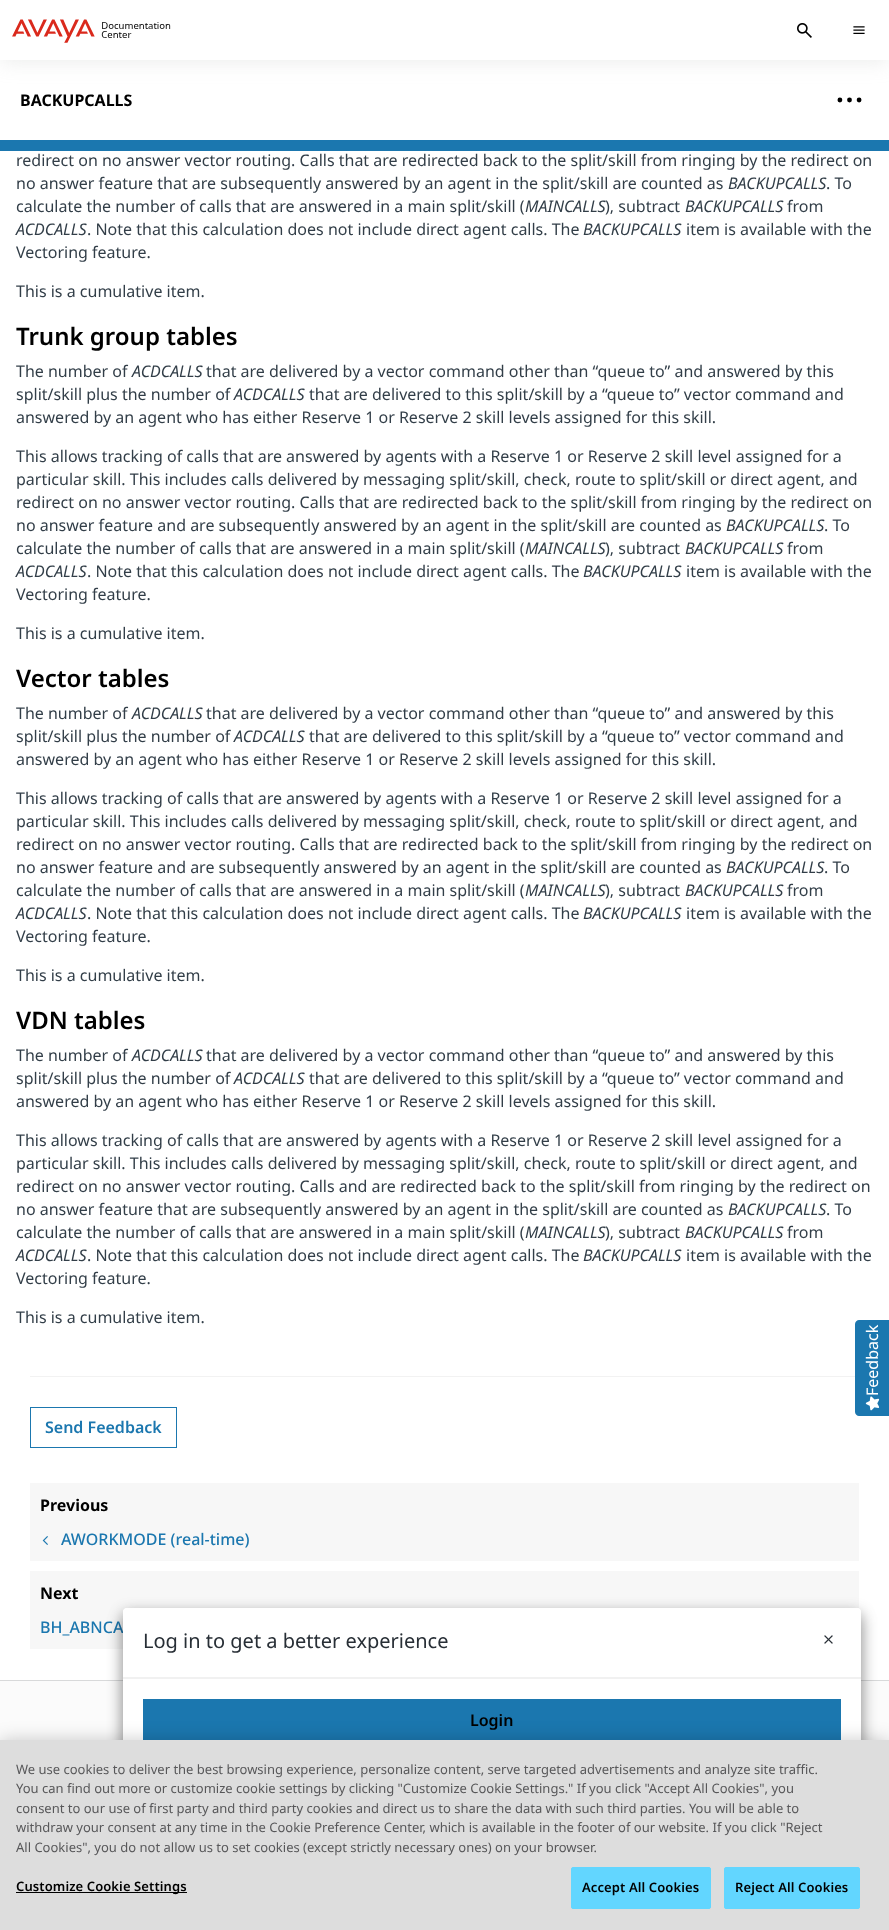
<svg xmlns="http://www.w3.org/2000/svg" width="889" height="1930">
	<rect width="100%" height="100%" fill="#FFFFFF" />
	<rect x="0" y="2" width="889" height="60" fill="#B5B7B3" fill-opacity="0.25" filter="blur(10px)" />
	<rect x="0" y="0" width="889" height="60" fill="#FFFFFF" />
	<image x="12" y="19" width="159" height="24" href="assets/img1.png" />
	<image x="797" y="23" width="15" height="15" href="assets/img2.png" />
	<image x="853" y="26" width="12" height="8" href="assets/img3.png" />
	<text x="20" y="106" font-family="Noto Sans" font-size="16" font-weight="700" fill="#000000">BACKUPCALLS</text>
	<circle cx="839.9" cy="100" r="2.4" fill="#000000" />
	<circle cx="849.5" cy="100" r="2.4" fill="#000000" />
	<circle cx="859.1" cy="100" r="2.4" fill="#000000" />
	<rect x="0" y="140" width="889" height="11" fill="#1B77AF" />
	<g font-family="Noto Sans" font-size="16" fill="#323E48">
		<text x="16" y="166">redirect on no answer vector routing. Calls that are redirected back to the split/skill from ringing by the redirect on</text>
		<text x="16" y="189">no answer feature that are subsequently answered by an agent in the split/skill are counted as</text>
	</g>
	<text x="728" y="189" font-family="Noto Sans" font-size="16" font-style="italic" fill="#323E48">BACKUPCALLS</text>
	<g font-family="Noto Sans" font-size="16" fill="#323E48">
		<text x="826" y="189">. To</text>
		<text x="16" y="212">calculate the number of calls that are answered in a main split/skill (</text>
	</g>
	<text x="525" y="212" font-family="Noto Sans" font-size="16" font-style="italic" fill="#323E48">MAINCALLS</text>
	<text x="605" y="212" font-family="Noto Sans" font-size="16" fill="#323E48">), subtract</text>
	<text x="685" y="212" font-family="Noto Sans" font-size="16" font-style="italic" fill="#323E48">BACKUPCALLS</text>
	<text x="787" y="212" font-family="Noto Sans" font-size="16" fill="#323E48">from</text>
	<text x="16" y="235" font-family="Noto Sans" font-size="16" font-style="italic" fill="#323E48">ACDCALLS</text>
	<text x="87" y="235" font-family="Noto Sans" font-size="16" fill="#323E48">. Note that this calculation does not include direct agent calls. The</text>
	<text x="583" y="235" font-family="Noto Sans" font-size="16" font-style="italic" fill="#323E48">BACKUPCALLS</text>
	<g font-family="Noto Sans" font-size="16" fill="#323E48">
		<text x="686" y="235">item is available with the</text>
		<text x="16" y="258">Vectoring feature.</text>
		<text x="16" y="297">This is a cumulative item.</text>
	</g>
	<text x="16" y="345" font-family="Noto Sans" font-size="24" font-weight="600" fill="#000000">Trunk group tables</text>
	<text x="16" y="377" font-family="Noto Sans" font-size="16" fill="#323E48">The number of</text>
	<text x="132" y="377" font-family="Noto Sans" font-size="16" font-style="italic" fill="#323E48">ACDCALLS</text>
	<g font-family="Noto Sans" font-size="16" fill="#323E48">
		<text x="206" y="377">that are delivered by a vector command other than “queue to” and answered by this</text>
		<text x="16" y="400">split/skill plus the number of</text>
	</g>
	<text x="234" y="400" font-family="Noto Sans" font-size="16" font-style="italic" fill="#323E48">ACDCALLS</text>
	<g font-family="Noto Sans" font-size="16" fill="#323E48">
		<text x="309" y="400">that are delivered to this split/skill by a “queue to” vector command and</text>
		<text x="16" y="423">answered by an agent who has either Reserve 1 or Reserve 2 skill levels assigned for this skill.</text>
		<text x="16" y="462">This allows tracking of calls that are answered by agents with a Reserve 1 or Reserve 2 skill level assigned for a</text>
		<text x="16" y="485">particular skill. This includes calls delivered by messaging split/skill, check, route to split/skill or direct agent, and</text>
		<text x="16" y="508">redirect on no answer vector routing. Calls that are redirected back to the split/skill from ringing by the redirect on</text>
		<text x="16" y="531">no answer feature and are subsequently answered by an agent in the split/skill are counted as</text>
	</g>
	<text x="726" y="531" font-family="Noto Sans" font-size="16" font-style="italic" fill="#323E48">BACKUPCALLS</text>
	<g font-family="Noto Sans" font-size="16" fill="#323E48">
		<text x="824" y="531">. To</text>
		<text x="16" y="554">calculate the number of calls that are answered in a main split/skill (</text>
	</g>
	<text x="525" y="554" font-family="Noto Sans" font-size="16" font-style="italic" fill="#323E48">MAINCALLS</text>
	<text x="605" y="554" font-family="Noto Sans" font-size="16" fill="#323E48">), subtract</text>
	<text x="685" y="554" font-family="Noto Sans" font-size="16" font-style="italic" fill="#323E48">BACKUPCALLS</text>
	<text x="787" y="554" font-family="Noto Sans" font-size="16" fill="#323E48">from</text>
	<text x="16" y="577" font-family="Noto Sans" font-size="16" font-style="italic" fill="#323E48">ACDCALLS</text>
	<text x="87" y="577" font-family="Noto Sans" font-size="16" fill="#323E48">. Note that this calculation does not include direct agent calls. The</text>
	<text x="583" y="577" font-family="Noto Sans" font-size="16" font-style="italic" fill="#323E48">BACKUPCALLS</text>
	<g font-family="Noto Sans" font-size="16" fill="#323E48">
		<text x="686" y="577">item is available with the</text>
		<text x="16" y="600">Vectoring feature.</text>
		<text x="16" y="639">This is a cumulative item.</text>
	</g>
	<text x="16" y="687" font-family="Noto Sans" font-size="24" font-weight="600" fill="#000000">Vector tables</text>
	<text x="16" y="719" font-family="Noto Sans" font-size="16" fill="#323E48">The number of</text>
	<text x="132" y="719" font-family="Noto Sans" font-size="16" font-style="italic" fill="#323E48">ACDCALLS</text>
	<g font-family="Noto Sans" font-size="16" fill="#323E48">
		<text x="206" y="719">that are delivered by a vector command other than “queue to” and answered by this</text>
		<text x="16" y="742">split/skill plus the number of</text>
	</g>
	<text x="234" y="742" font-family="Noto Sans" font-size="16" font-style="italic" fill="#323E48">ACDCALLS</text>
	<g font-family="Noto Sans" font-size="16" fill="#323E48">
		<text x="309" y="742">that are delivered to this split/skill by a “queue to” vector command and</text>
		<text x="16" y="765">answered by an agent who has either Reserve 1 or Reserve 2 skill levels assigned for this skill.</text>
		<text x="16" y="804">This allows tracking of calls that are answered by agents with a Reserve 1 or Reserve 2 skill level assigned for a</text>
		<text x="16" y="827">particular skill. This includes calls delivered by messaging split/skill, check, route to split/skill or direct agent, and</text>
		<text x="16" y="850">redirect on no answer vector routing. Calls that are redirected back to the split/skill from ringing by the redirect on</text>
		<text x="16" y="873">no answer feature and are subsequently answered by an agent in the split/skill are counted as</text>
	</g>
	<text x="726" y="873" font-family="Noto Sans" font-size="16" font-style="italic" fill="#323E48">BACKUPCALLS</text>
	<g font-family="Noto Sans" font-size="16" fill="#323E48">
		<text x="824" y="873">. To</text>
		<text x="16" y="896">calculate the number of calls that are answered in a main split/skill (</text>
	</g>
	<text x="525" y="896" font-family="Noto Sans" font-size="16" font-style="italic" fill="#323E48">MAINCALLS</text>
	<text x="605" y="896" font-family="Noto Sans" font-size="16" fill="#323E48">), subtract</text>
	<text x="685" y="896" font-family="Noto Sans" font-size="16" font-style="italic" fill="#323E48">BACKUPCALLS</text>
	<text x="787" y="896" font-family="Noto Sans" font-size="16" fill="#323E48">from</text>
	<text x="16" y="919" font-family="Noto Sans" font-size="16" font-style="italic" fill="#323E48">ACDCALLS</text>
	<text x="87" y="919" font-family="Noto Sans" font-size="16" fill="#323E48">. Note that this calculation does not include direct agent calls. The</text>
	<text x="583" y="919" font-family="Noto Sans" font-size="16" font-style="italic" fill="#323E48">BACKUPCALLS</text>
	<g font-family="Noto Sans" font-size="16" fill="#323E48">
		<text x="686" y="919">item is available with the</text>
		<text x="16" y="942">Vectoring feature.</text>
		<text x="16" y="981">This is a cumulative item.</text>
	</g>
	<text x="16" y="1029" font-family="Noto Sans" font-size="24" font-weight="600" fill="#000000">VDN tables</text>
	<text x="16" y="1061" font-family="Noto Sans" font-size="16" fill="#323E48">The number of</text>
	<text x="132" y="1061" font-family="Noto Sans" font-size="16" font-style="italic" fill="#323E48">ACDCALLS</text>
	<g font-family="Noto Sans" font-size="16" fill="#323E48">
		<text x="206" y="1061">that are delivered by a vector command other than “queue to” and answered by this</text>
		<text x="16" y="1084">split/skill plus the number of</text>
	</g>
	<text x="234" y="1084" font-family="Noto Sans" font-size="16" font-style="italic" fill="#323E48">ACDCALLS</text>
	<g font-family="Noto Sans" font-size="16" fill="#323E48">
		<text x="309" y="1084">that are delivered to this split/skill by a “queue to” vector command and</text>
		<text x="16" y="1107">answered by an agent who has either Reserve 1 or Reserve 2 skill levels assigned for this skill.</text>
		<text x="16" y="1146">This allows tracking of calls that are answered by agents with a Reserve 1 or Reserve 2 skill level assigned for a</text>
		<text x="16" y="1169">particular skill. This includes calls delivered by messaging split/skill, check, route to split/skill or direct agent, and</text>
		<text x="16" y="1192">redirect on no answer vector routing. Calls and are redirected back to the split/skill from ringing by the redirect on</text>
		<text x="16" y="1215">no answer feature that are subsequently answered by an agent in the split/skill are counted as</text>
	</g>
	<text x="728" y="1215" font-family="Noto Sans" font-size="16" font-style="italic" fill="#323E48">BACKUPCALLS</text>
	<g font-family="Noto Sans" font-size="16" fill="#323E48">
		<text x="826" y="1215">. To</text>
		<text x="16" y="1238">calculate the number of calls that are answered in a main split/skill (</text>
	</g>
	<text x="525" y="1238" font-family="Noto Sans" font-size="16" font-style="italic" fill="#323E48">MAINCALLS</text>
	<text x="605" y="1238" font-family="Noto Sans" font-size="16" fill="#323E48">), subtract</text>
	<text x="685" y="1238" font-family="Noto Sans" font-size="16" font-style="italic" fill="#323E48">BACKUPCALLS</text>
	<text x="787" y="1238" font-family="Noto Sans" font-size="16" fill="#323E48">from</text>
	<text x="16" y="1261" font-family="Noto Sans" font-size="16" font-style="italic" fill="#323E48">ACDCALLS</text>
	<text x="87" y="1261" font-family="Noto Sans" font-size="16" fill="#323E48">. Note that this calculation does not include direct agent calls. The</text>
	<text x="583" y="1261" font-family="Noto Sans" font-size="16" font-style="italic" fill="#323E48">BACKUPCALLS</text>
	<g font-family="Noto Sans" font-size="16" fill="#323E48">
		<text x="686" y="1261">item is available with the</text>
		<text x="16" y="1284">Vectoring feature.</text>
		<text x="16" y="1323">This is a cumulative item.</text>
	</g>
	<rect x="30" y="1376" width="829" height="1" fill="#F2F2F2" />
	<rect x="30.5" y="1407.5" width="146" height="40" fill="none" stroke="#1B77AF" />
	<text x="45" y="1433" font-family="Noto Sans" font-size="16" font-weight="600" fill="#1B77AF">Send Feedback</text>
	<rect x="30" y="1483" width="829" height="78" fill="#F7F7F7" />
	<text x="40" y="1511" font-family="Noto Sans" font-size="16" font-weight="700" fill="#000000">Previous</text>
	<image x="42" y="1536" width="6" height="9" href="assets/img4.png" />
	<text x="61" y="1545" font-family="Noto Sans" font-size="16" font-weight="500" fill="#1B77AF">AWORKMODE (real-time)</text>
	<rect x="30" y="1571" width="829" height="78" fill="#F7F7F7" />
	<text x="40" y="1599" font-family="Noto Sans" font-size="16" font-weight="700" fill="#000000">Next</text>
	<text x="40" y="1633" font-family="Noto Sans" font-size="16" font-weight="500" fill="#1B77AF">BH_ABNCA</text>
	<rect x="0" y="1681" width="889" height="59" fill="#FBFBFB" />
	<rect x="0" y="1680" width="889" height="1" fill="#D8D9DA" />
	<rect x="123" y="1613" width="738" height="154" rx="4" fill="#000000" fill-opacity="0.25" filter="blur(7.5px)" />
	<rect x="123" y="1616" width="738" height="154" rx="4" fill="#000000" fill-opacity="0.27" filter="blur(8px)" />
	<rect x="123" y="1608" width="738" height="154" rx="4" fill="#FFFFFF" />
	<path d="M127 1608H857C859 1608 861 1610 861 1612V1678H123V1612C123 1610 125 1608 127 1608Z" fill="#FFFFFF" />
	<rect x="123" y="1677" width="738" height="2" fill="#F1F1F1" />
	<text x="143" y="1648" font-family="Noto Sans" font-size="20" fill="#282F36">Log in to get a better experience</text>
	<image x="824" y="1635" width="9" height="9" href="assets/img5.png" />
	<rect x="143" y="1699" width="698" height="41" fill="#1B77AF" />
	<text x="470" y="1726" font-family="Noto Sans" font-size="16" font-weight="600" fill="#000000">Login</text>
	<path d="M855 1412V1324C855 1322 857 1320 859 1320H889V1416H859C857 1416 855 1414 855 1412Z" fill="#1B77AF" />
	<text x="878" y="1396" transform="rotate(-90 878 1396)" font-family="Noto Sans" font-size="16" fill="#FFFFFF">Feedback</text>
	<image x="865" y="1396" width="15" height="15" href="assets/img6.png" />
	<rect x="0" y="1740" width="889" height="190" fill="#000000" fill-opacity="0.2" filter="blur(9px)" />
	<rect x="0" y="1740" width="889" height="190" fill="#DDDDDD" />
	<g font-family="Noto Sans" font-size="13" fill="#575759">
		<text x="16" y="1774">We use cookies to deliver the best browsing experience, personalize content, serve targeted advertisements and analyze site traffic.</text>
		<text x="16" y="1793">You can find out more or customize cookie settings by clicking "Customize Cookie Settings." If you click "Accept All Cookies", you</text>
		<text x="16" y="1813">consent to our use of first party and third party cookies and direct us to share the data with such third parties. You will be able to</text>
		<text x="16" y="1832">withdraw your consent at any time in the Cookie Preference Center, which is available in the footer of our website. If you click "Reject</text>
		<text x="16" y="1852">All Cookies", you do not allow us to set cookies (except strictly necessary ones) on your browser.</text>
	</g>
	<rect x="16" y="1892" width="171" height="1" fill="#000000" />
	<text x="16" y="1891" font-family="Noto Sans" font-size="13" font-weight="600" letter-spacing="0.1" fill="#000000">Customize Cookie Settings</text>
	<rect x="571.5" y="1867.5" width="139" height="41" rx="1.5" fill="#62D6FF" stroke="#62D6FF" />
	<text x="582" y="1892" font-family="Noto Sans" font-size="13" font-weight="600" letter-spacing="0.1" fill="#000000">Accept All Cookies</text>
	<rect x="724.5" y="1867.5" width="135" height="41" rx="1.5" fill="#62D6FF" stroke="#62D6FF" />
	<text x="735" y="1892" font-family="Noto Sans" font-size="13" font-weight="600" letter-spacing="0.1" fill="#000000">Reject All Cookies</text>
</svg>
